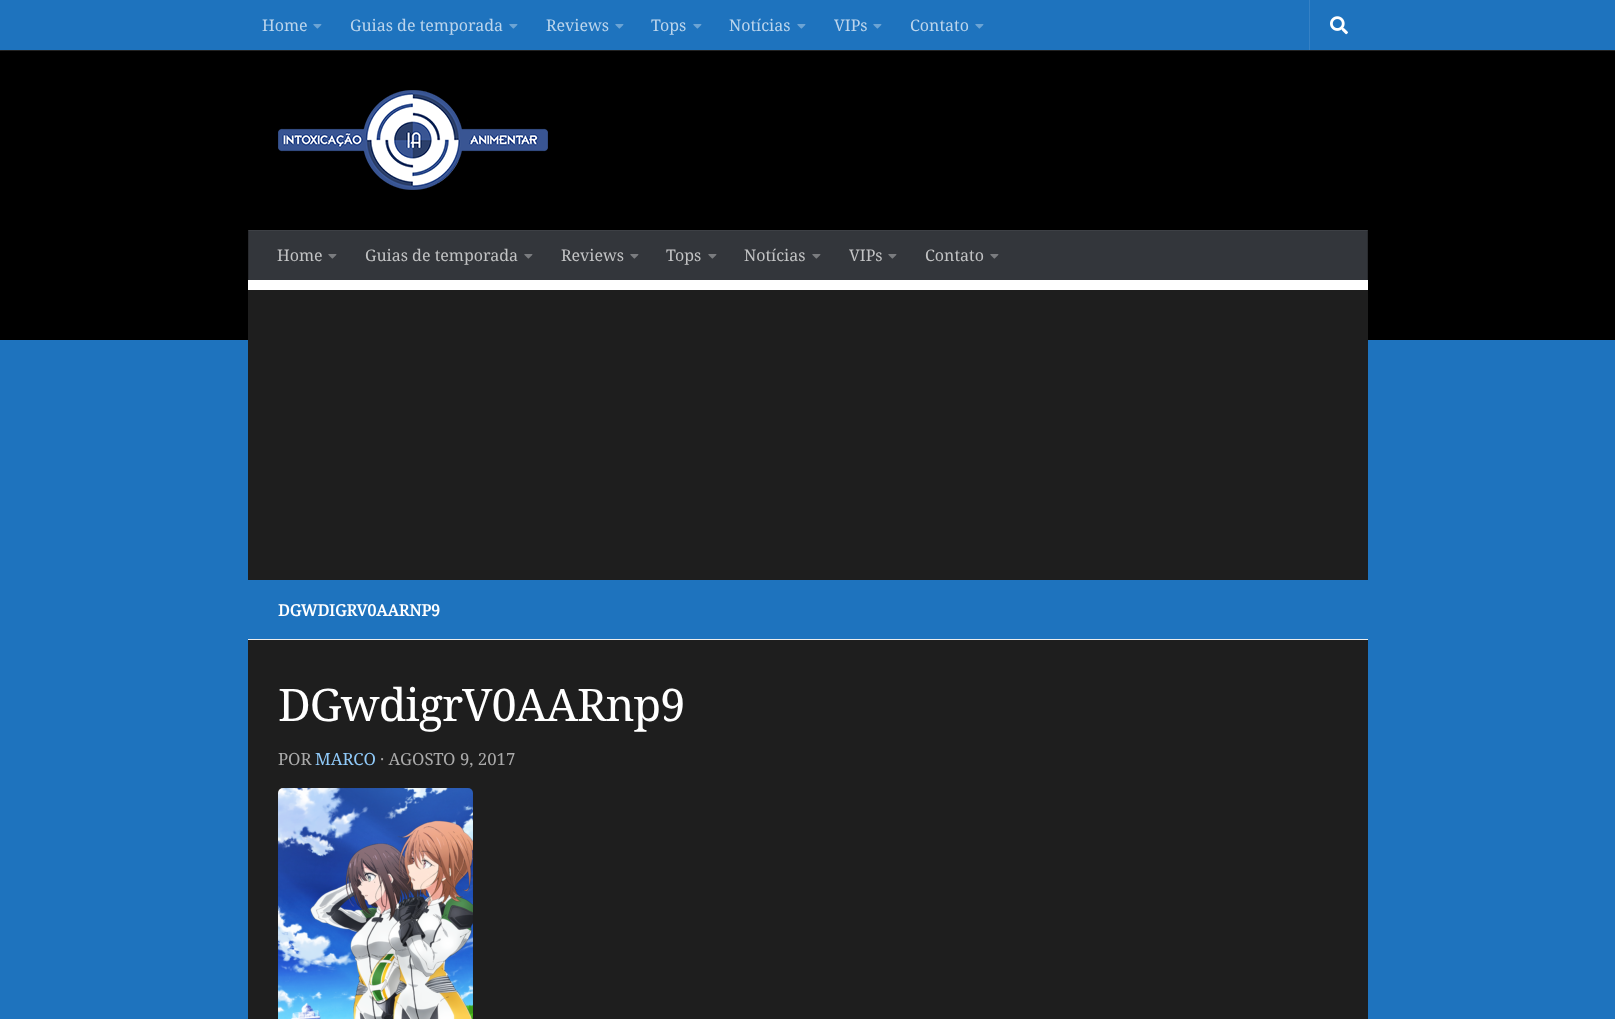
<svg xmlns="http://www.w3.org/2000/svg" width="1615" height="1019">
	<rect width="100%" height="100%" fill="#1E73BE" />
	<rect x="0" y="51" width="1615" height="289" fill="#000000" />
	<rect x="0" y="50" width="1615" height="1" fill="#262626" />
	<rect x="0" y="0" width="1615" height="50" fill="#000000" fill-opacity="0.2" filter="blur(2.5px)" />
	<rect x="0" y="0" width="1615" height="50" fill="#1E73BE" />
	<text x="262" y="31" font-family="Noto Serif" font-size="16" fill="#BCD5EC">Home</text>
	<image x="313" y="24" width="9" height="5" href="assets/img1.png" />
	<text x="350" y="31" font-family="Noto Serif" font-size="16" fill="#BCD5EC">Guias de temporada</text>
	<image x="509" y="24" width="9" height="5" href="assets/img1.png" />
	<text x="546" y="31" font-family="Noto Serif" font-size="16" fill="#BCD5EC">Reviews</text>
	<image x="615" y="24" width="9" height="5" href="assets/img1.png" />
	<text x="651" y="31" font-family="Noto Serif" font-size="16" fill="#BCD5EC">Tops</text>
	<image x="693" y="24" width="9" height="5" href="assets/img1.png" />
	<text x="729" y="31" font-family="Noto Serif" font-size="16" fill="#BCD5EC">Notícias</text>
	<image x="797" y="24" width="9" height="5" href="assets/img1.png" />
	<text x="834" y="31" font-family="Noto Serif" font-size="16" fill="#BCD5EC">VIPs</text>
	<image x="873" y="24" width="9" height="5" href="assets/img1.png" />
	<text x="910" y="31" font-family="Noto Serif" font-size="16" fill="#BCD5EC">Contato</text>
	<image x="975" y="24" width="9" height="5" href="assets/img1.png" />
	<rect x="1309" y="0" width="1" height="50" fill="#3581C5" />
	<image x="1330" y="16" width="18" height="19" href="assets/img2.png" />
	<image x="278" y="90" width="270" height="100" href="assets/img3.png" />
	<rect x="249" y="231" width="1118" height="49" fill="#33363B" />
	<rect x="248" y="230" width="1120" height="1" fill="#3D4045" />
	<rect x="1367" y="230" width="1" height="50" fill="#292B2F" />
	<rect x="1367" y="230" width="1" height="1" fill="#343639" />
	<rect x="248" y="230" width="1" height="50" fill="#292B2F" />
	<rect x="248" y="230" width="1" height="1" fill="#343639" />
	<text x="277" y="261" font-family="Noto Serif" font-size="16" fill="#C2C3C4">Home</text>
	<image x="328" y="254" width="9" height="5" href="assets/img4.png" />
	<text x="365" y="261" font-family="Noto Serif" font-size="16" fill="#C2C3C4">Guias de temporada</text>
	<image x="524" y="254" width="9" height="5" href="assets/img4.png" />
	<text x="561" y="261" font-family="Noto Serif" font-size="16" fill="#C2C3C4">Reviews</text>
	<image x="630" y="254" width="9" height="5" href="assets/img4.png" />
	<text x="666" y="261" font-family="Noto Serif" font-size="16" fill="#C2C3C4">Tops</text>
	<image x="708" y="254" width="9" height="5" href="assets/img4.png" />
	<text x="744" y="261" font-family="Noto Serif" font-size="16" fill="#C2C3C4">Notícias</text>
	<image x="812" y="254" width="9" height="5" href="assets/img4.png" />
	<text x="849" y="261" font-family="Noto Serif" font-size="16" fill="#C2C3C4">VIPs</text>
	<image x="888" y="254" width="9" height="5" href="assets/img4.png" />
	<text x="925" y="261" font-family="Noto Serif" font-size="16" fill="#C2C3C4">Contato</text>
	<image x="990" y="254" width="9" height="5" href="assets/img4.png" />
	<rect x="248" y="280" width="1120" height="10" fill="#FFFFFF" />
	<rect x="248" y="290" width="1120" height="729" fill="#1E1E1E" />
	<rect x="248" y="580" width="1120" height="59" fill="#1E73BE" />
	<rect x="248" y="639" width="1120" height="1" fill="#EEEEEE" />
	<text x="278" y="616" font-family="Noto Serif" font-size="16" font-weight="700" fill="#FFFFFF">DGWDIGRV0AARNP9</text>
	<text x="278" y="721" font-family="Noto Serif" font-size="45" letter-spacing="-1" fill="#FFFFFF">DGwdigrV0AARnp9</text>
	<text x="278" y="765" font-family="Noto Serif" font-size="16.75" fill="#AAAAAA">POR</text>
	<text x="315" y="765" font-family="Noto Serif" font-size="16.75" fill="#90CAF9">MARCO</text>
	<text x="380" y="765" font-family="Noto Serif" font-size="16.75" fill="#AAAAAA">· AGOSTO 9, 2017</text>
	<image x="278" y="788" width="195" height="231" href="assets/img5.png" />
</svg>
